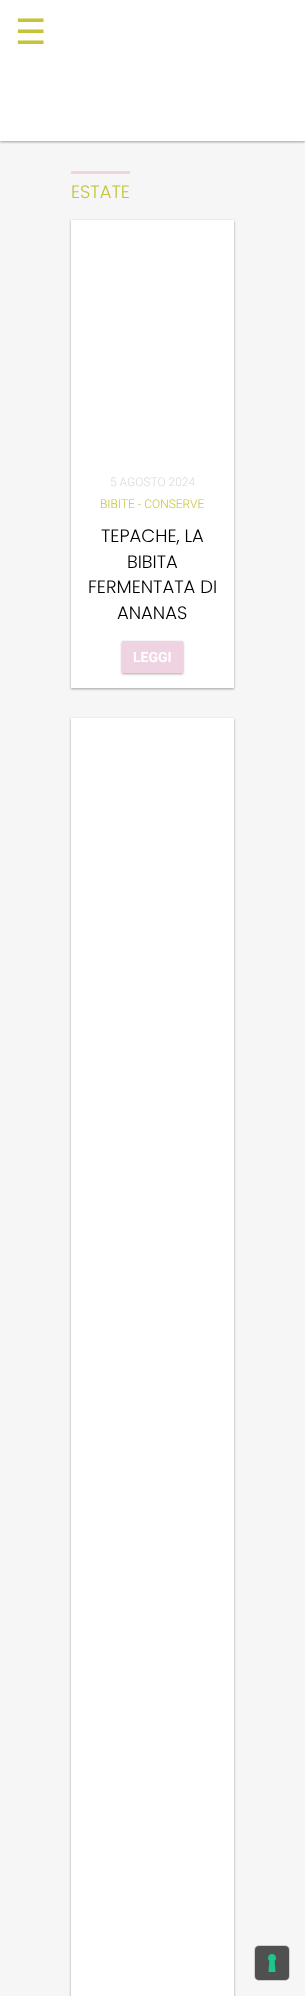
<svg xmlns="http://www.w3.org/2000/svg" width="305" height="1996">
	<rect width="100%" height="100%" fill="#F6F6F6" />
	<rect x="0" y="1" width="305" height="141" fill="#000000" fill-opacity="0.24" filter="blur(1px)" />
	<rect x="0" y="1" width="305" height="141" fill="#000000" fill-opacity="0.12" filter="blur(1.5px)" />
	<rect x="0" y="0" width="305" height="141" fill="#FFFFFF" />
	<text x="15" y="44" font-family="DejaVu Sans" font-size="35" fill="#C4C339">☰</text>
	<rect x="71" y="171" width="59" height="3" fill="#EFD3E3" />
	<text x="71" y="198" font-family="Poppins" font-size="18" font-weight="300" fill="#C4C339">ESTATE</text>
	<rect x="71" y="221" width="163" height="468" fill="#000000" fill-opacity="0.24" filter="blur(1px)" />
	<rect x="71" y="221" width="163" height="468" fill="#000000" fill-opacity="0.12" filter="blur(1.5px)" />
	<rect x="71" y="220" width="163" height="468" fill="#FFFFFF" />
	<text x="110" y="486" font-family="Roboto" font-size="12" font-weight="300" fill="#D8D8D8">5 AGOSTO 2024</text>
	<text x="100" y="508" font-family="Roboto" font-size="12" font-weight="300" fill="#C4C339">BIBITE - CONSERVE</text>
	<g font-family="Poppins" font-size="18" font-weight="300" fill="#000000">
		<text x="101" y="542">TEPACHE, LA</text>
		<text x="127" y="568">BIBITA</text>
		<text x="88" y="593">FERMENTATA DI</text>
		<text x="117" y="619">ANANAS</text>
	</g>
	<rect x="122" y="642" width="61" height="32" fill="#000000" fill-opacity="0.24" filter="blur(1px)" />
	<rect x="122" y="642" width="61" height="32" fill="#000000" fill-opacity="0.12" filter="blur(1.5px)" />
	<rect x="122" y="641" width="61" height="32" fill="#EFD3E3" />
	<text x="133" y="662" font-family="Roboto" font-size="14" font-weight="700" fill="#FFFFFF">LEGGI</text>
	<rect x="71" y="719" width="163" height="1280" fill="#000000" fill-opacity="0.24" filter="blur(1px)" />
	<rect x="71" y="719" width="163" height="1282" fill="#000000" fill-opacity="0.12" filter="blur(1.5px)" />
	<rect x="71" y="718" width="163" height="1278" fill="#FFFFFF" />
	<rect x="254.5" y="1945.5" width="35" height="35" rx="4.5" fill="none" stroke="#D1D1D1" />
	<rect x="255" y="1946" width="34" height="34" rx="4" fill="#505050" />
	<image x="268" y="1954" width="8" height="18" href="assets/img1.png" />
</svg>
